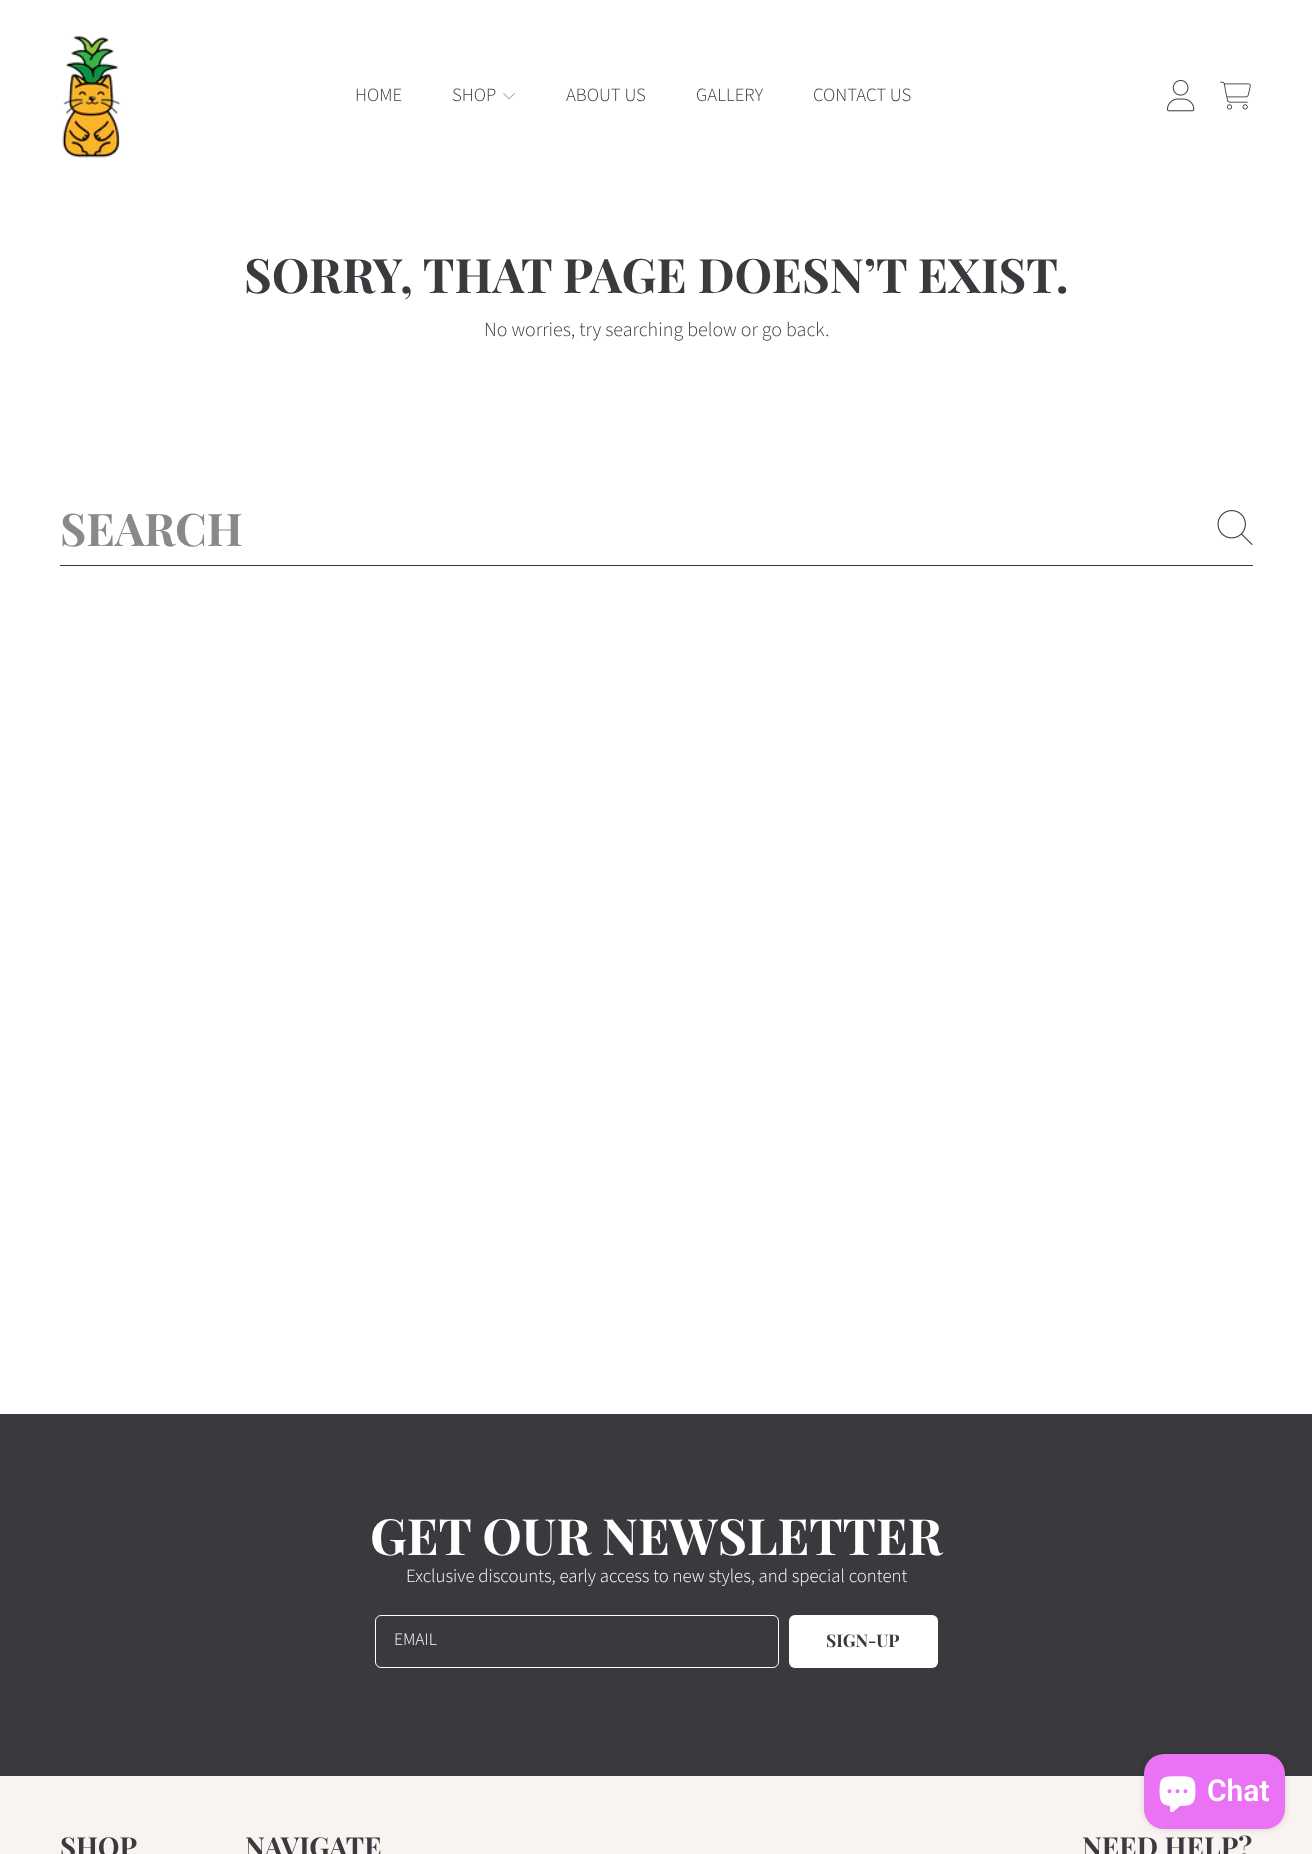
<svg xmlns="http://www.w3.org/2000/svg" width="1312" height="1854">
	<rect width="100%" height="100%" fill="#FFFFFF" />
	<image x="62" y="36" width="59" height="122" href="assets/img1.png" />
	<g font-family="Source Sans Pro" font-size="18.75" font-weight="300" fill="#3A3A3E">
		<text x="355" y="101">HOME</text>
		<text x="452" y="101">SHOP</text>
	</g>
	<image x="503" y="93" width="12" height="6" href="assets/img2.png" />
	<g font-family="Source Sans Pro" font-size="18.75" font-weight="300" fill="#3A3A3E">
		<text x="566" y="101">ABOUT US</text>
		<text x="696" y="101">GALLERY</text>
		<text x="813" y="101">CONTACT US</text>
	</g>
	<image x="1167" y="80" width="28" height="32" href="assets/img3.png" />
	<image x="1220" y="81" width="31" height="29" href="assets/img4.png" />
	<text x="244" y="293" font-family="Playfair Display" font-size="47.5" font-weight="700" fill="#3A3A3E">SORRY, THAT PAGE DOESN’T EXIST.</text>
	<text x="484" y="336" font-family="Source Sans Pro" font-size="20" font-weight="300" fill="#3A3A3E">No worries, try searching below or go back.</text>
	<rect x="60" y="565" width="1193" height="1" fill="#3A3A3E" />
	<text x="60" y="546" font-family="Playfair Display" font-size="45" font-weight="700" fill="#89898B">SEARCH</text>
	<image x="1217" y="510" width="36" height="35" href="assets/img5.png" />
	<rect x="0" y="1414" width="1312" height="362" fill="#3A3A3E" />
	<text x="370" y="1555" font-family="Playfair Display" font-size="50" font-weight="700" fill="#FFFFFF">GET OUR NEWSLETTER</text>
	<text x="406" y="1582" font-family="Source Sans Pro" font-size="18.75" font-weight="300" fill="#FFFFFF">Exclusive discounts, early access to new styles, and special content</text>
	<rect x="375.5" y="1615.5" width="403" height="52" rx="5.5" fill="none" stroke="#FFFFFF" />
	<text x="394" y="1645" font-family="Source Sans Pro" font-size="17.5" font-weight="300" fill="#FFFFFF">EMAIL</text>
	<rect x="789" y="1615" width="149" height="53" rx="6" fill="#FFFFFF" />
	<text x="826" y="1647" font-family="Playfair Display" font-size="17.5" font-weight="700" fill="#3A3A3E">SIGN-UP</text>
	<rect x="0" y="1776" width="1312" height="78" fill="#F9F3F1" />
	<g font-family="Playfair Display" font-size="27.5" font-weight="700" fill="#3A3A3E">
		<text x="60" y="1857">SHOP</text>
		<text x="245" y="1857">NAVIGATE</text>
		<text x="1082" y="1857">NEED HELP?</text>
	</g>
	<rect x="1144" y="1754" width="141" height="75" rx="20" fill="#000000" fill-opacity="0.15" filter="blur(3px)" />
	<rect x="1144" y="1754" width="141" height="75" rx="20" fill="#EA72F4" />
	<image x="1159" y="1776" width="37" height="37" href="assets/img6.png" />
	<text x="1207" y="1801" font-family="Roboto" font-size="30" font-weight="600" fill="#FFFFFF">Chat</text>
</svg>
